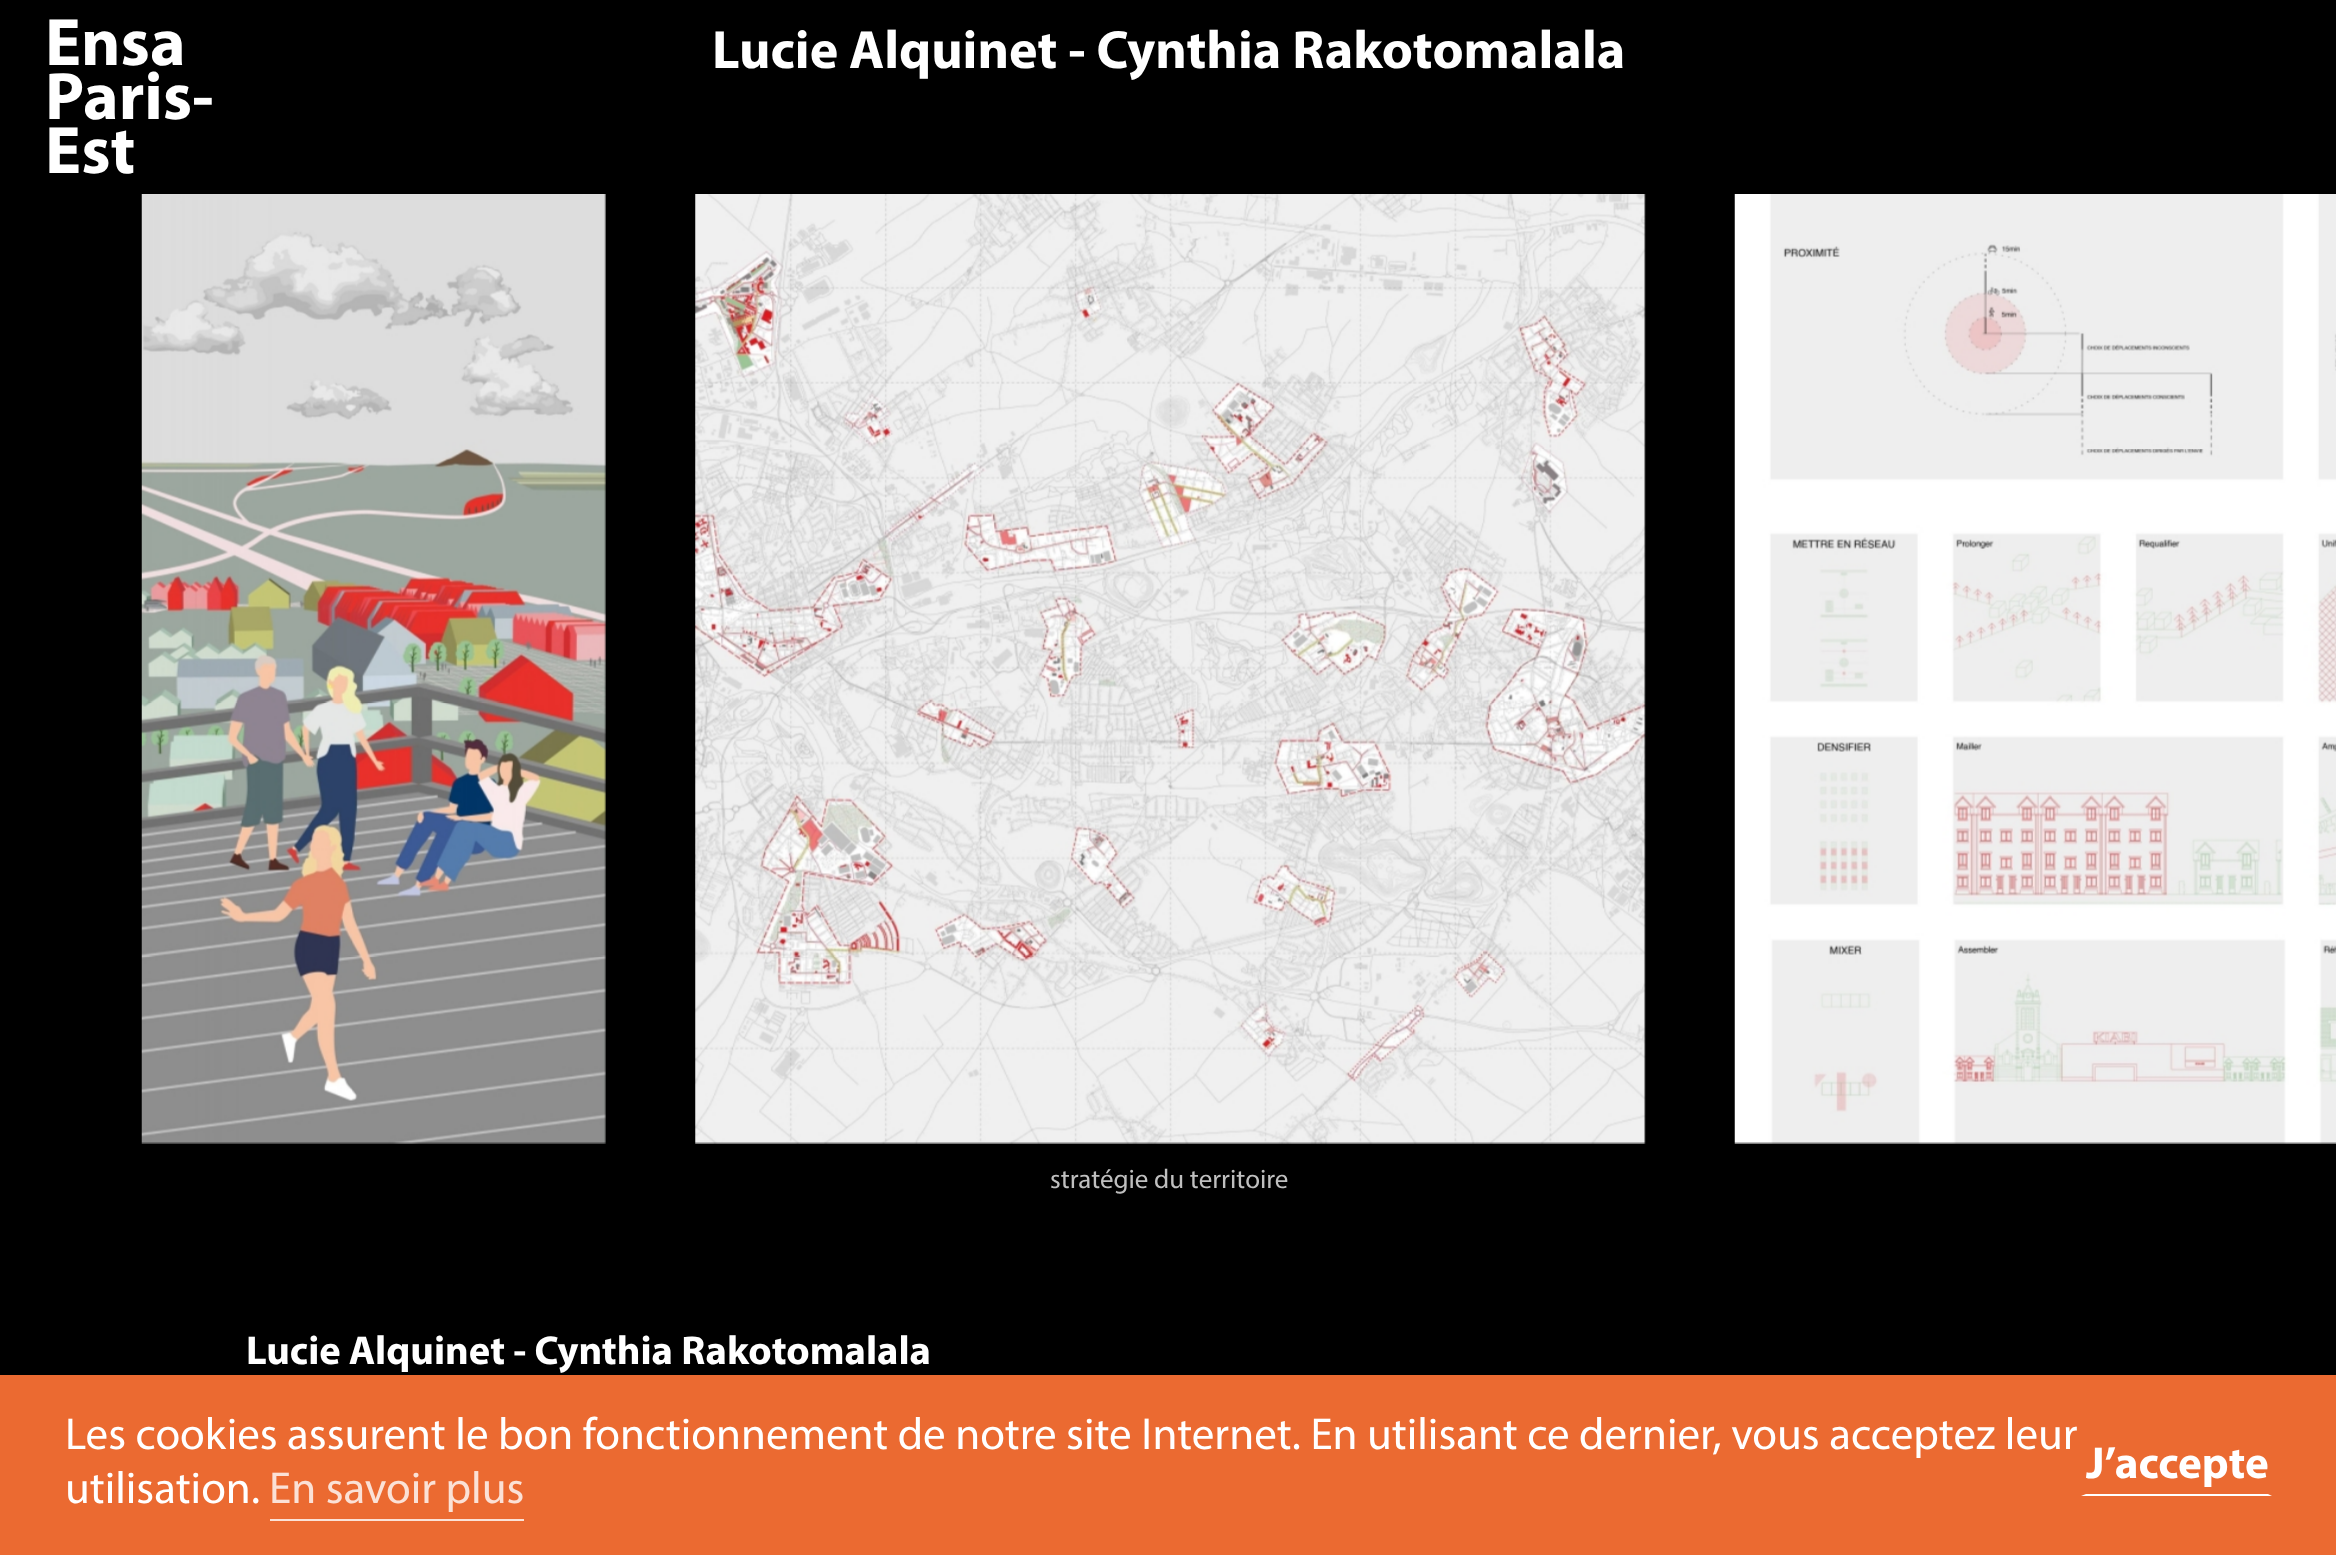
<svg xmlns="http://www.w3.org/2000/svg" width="2336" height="1555">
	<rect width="100%" height="100%" fill="#000000" />
	<g font-family="Myriad" font-size="67.5" font-weight="700" fill="#FFFFFF">
		<text x="45" y="65">Ensa</text>
		<text x="45" y="119">Paris-</text>
		<text x="45" y="173">Est</text>
	</g>
	<text x="712" y="68" font-family="Myriad" font-size="54" font-weight="700" fill="#FFFFFF">Lucie Alquinet - Cynthia Rakotomalala</text>
	<image x="141" y="194" width="465" height="950" href="assets/img1.png" />
	<image x="1734" y="194" width="602" height="950" href="assets/img2.png" />
	<image x="695" y="194" width="951" height="950" href="assets/img3.png" />
	<text x="1050" y="1188" font-family="Myriad" font-size="27" fill="#BFBFBF">stratégie du territoire</text>
	<text x="246" y="1364" font-family="Myriad" font-size="40.5" font-weight="700" fill="#FFFFFF">Lucie Alquinet - Cynthia Rakotomalala</text>
	<rect x="0" y="1375" width="2336" height="180" fill="#EB6A31" />
	<g font-family="Myriad" font-size="45" fill="#FFFFFF">
		<text x="65" y="1449">Les cookies assurent le bon fonctionnement de notre site Internet. En utilisant ce dernier, vous acceptez leur</text>
		<text x="65" y="1503">utilisation.</text>
	</g>
	<rect x="270" y="1519" width="254" height="2" fill="#FBE1D6" />
	<text x="269" y="1503" font-family="Myriad" font-size="45" fill="#FBE1D6">En savoir plus</text>
	<path d="M2272 1496H2081L2086 1494H2268Z" fill="#FFFFFF" />
	<text x="2086" y="1478" font-family="Myriad" font-size="45" font-weight="700" fill="#FFFFFF">J’accepte</text>
</svg>
